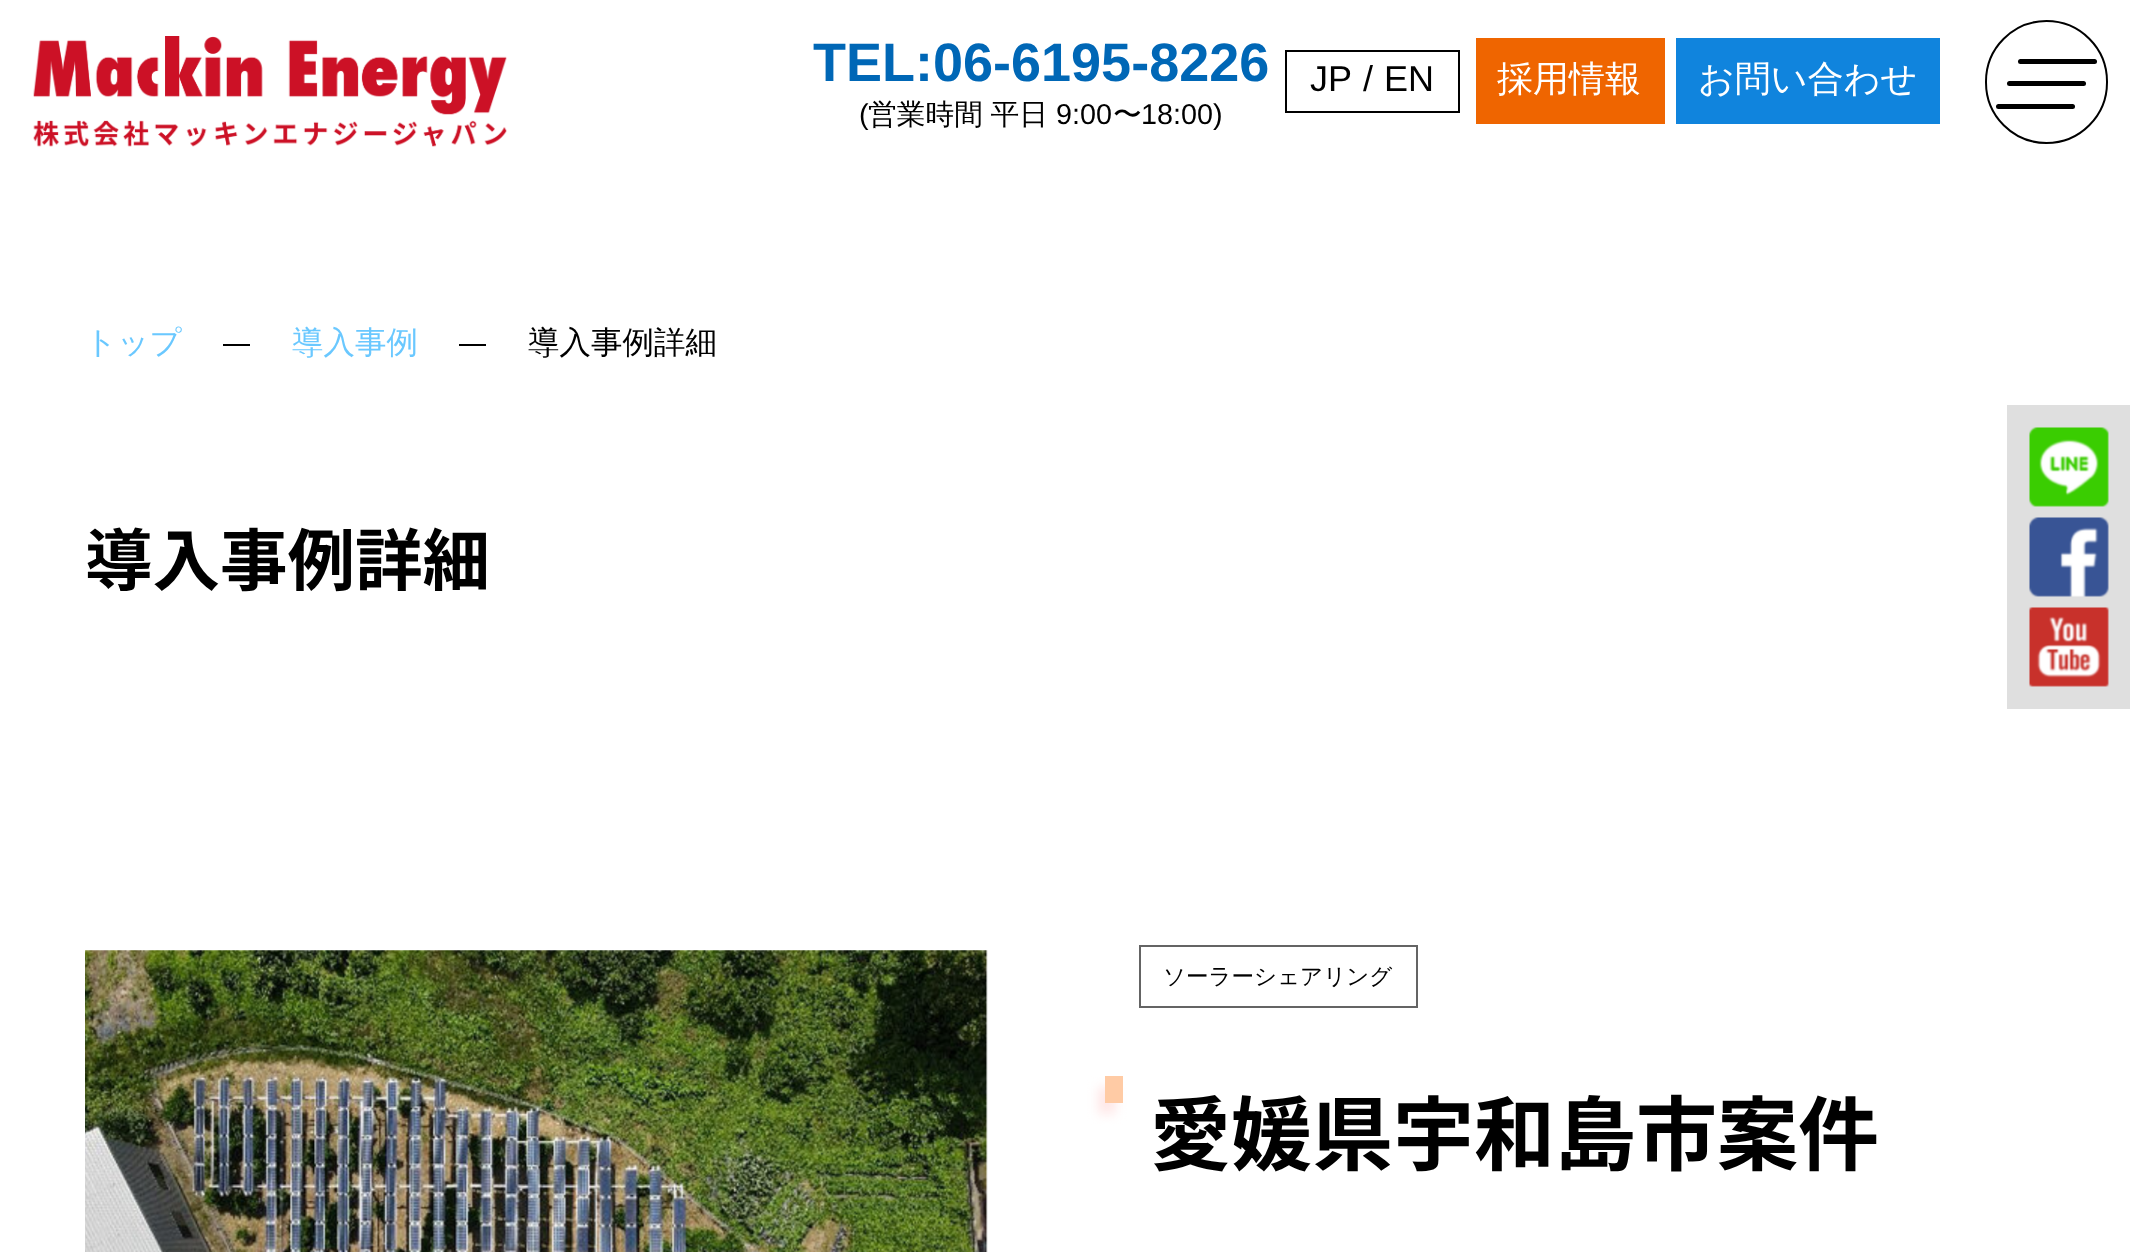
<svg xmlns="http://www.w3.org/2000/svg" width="2130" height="1252">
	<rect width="100%" height="100%" fill="#FFFFFF" />
	<image x="33" y="36" width="474" height="111" href="assets/img1.png" />
	<text x="813" y="81" font-family="Liberation Sans" font-size="54" font-weight="700" fill="#0067B6">TEL:06-6195-8226</text>
	<text x="859" y="124" font-family="Liberation Sans" font-size="28.75" fill="#000000">(</text>
	<text x="868" y="124" word-spacing="-1" font-family="WenQuanYi Zen Hei" font-size="28.75" font-weight="500" fill="#000000">営業時間 平日</text>
	<text x="1056" y="124" font-family="Liberation Sans" font-size="28.75" fill="#000000">9:00</text>
	<text x="1113" y="124" font-family="WenQuanYi Zen Hei" font-size="28.75" font-weight="500" fill="#000000">〜</text>
	<text x="1141" y="124" font-family="Liberation Sans" font-size="28.75" fill="#000000">18:00)</text>
	<rect x="1286" y="51" width="173" height="61" fill="none" stroke="#000000" stroke-width="2" />
	<g font-family="Liberation Sans" font-size="36" fill="#000000">
		<text x="1310" y="91">JP</text>
		<text x="1363" y="91">/</text>
		<text x="1384" y="91">EN</text>
	</g>
	<rect x="1476" y="38" width="189" height="86" fill="#EF6500" />
	<text x="1497" y="91" font-family="WenQuanYi Zen Hei" font-size="36" font-weight="500" fill="#FFFFFF">採用情報</text>
	<rect x="1676" y="38" width="264" height="86" fill="#1084DD" />
	<text x="1698" y="91" font-family="WenQuanYi Zen Hei" font-size="36" font-weight="500" fill="#FFFFFF">お問い合わせ</text>
	<rect x="1986" y="21" width="121" height="122" rx="60.5" fill="none" stroke="#000000" stroke-width="2" />
	<rect x="2018" y="59" width="79" height="5" rx="2.5" fill="#000000" />
	<rect x="2007" y="81" width="79" height="5" rx="2.5" fill="#000000" />
	<rect x="1996" y="104" width="79" height="5" rx="2.5" fill="#000000" />
	<text x="85" y="353" font-family="WenQuanYi Zen Hei" font-size="31.5" font-weight="500" fill="#6AC8FF">トップ</text>
	<rect x="223" y="344" width="27" height="2" fill="#000000" />
	<text x="292" y="353" font-family="WenQuanYi Zen Hei" font-size="31.5" font-weight="500" fill="#6AC8FF">導入事例</text>
	<rect x="459" y="344" width="27" height="2" fill="#000000" />
	<text x="528" y="353" font-family="WenQuanYi Zen Hei" font-size="31.5" font-weight="500" fill="#000000">導入事例詳細</text>
	<text x="85" y="585" font-family="Noto Sans JP" font-size="67.5" font-weight="700" fill="#000000">導入事例詳細</text>
	<image x="85" y="950" width="903" height="302" href="assets/img2.png" />
	<rect x="1140" y="946" width="277" height="61" fill="none" stroke="#646464" stroke-width="2" />
	<text x="1163" y="984" font-family="WenQuanYi Zen Hei" font-size="22.5" font-weight="500" fill="#000000">ソーラーシェアリング</text>
	<rect x="1098" y="1087" width="18" height="27" fill="#FFE7E7" filter="blur(5.5px)" />
	<rect x="1105" y="1076" width="18" height="27" fill="#FFCBA5" />
	<text x="1150" y="1164" font-family="Noto Sans JP" font-size="81" font-weight="700" fill="#000000">愛媛県宇和島市案件</text>
	<rect x="2007" y="405" width="123" height="304" fill="#DFDFDF" />
	<image x="2029" y="427" width="80" height="80" href="assets/img3.png" />
	<image x="2029" y="517" width="80" height="80" href="assets/img4.png" />
	<image x="2029" y="607" width="80" height="80" href="assets/img5.png" />
</svg>
